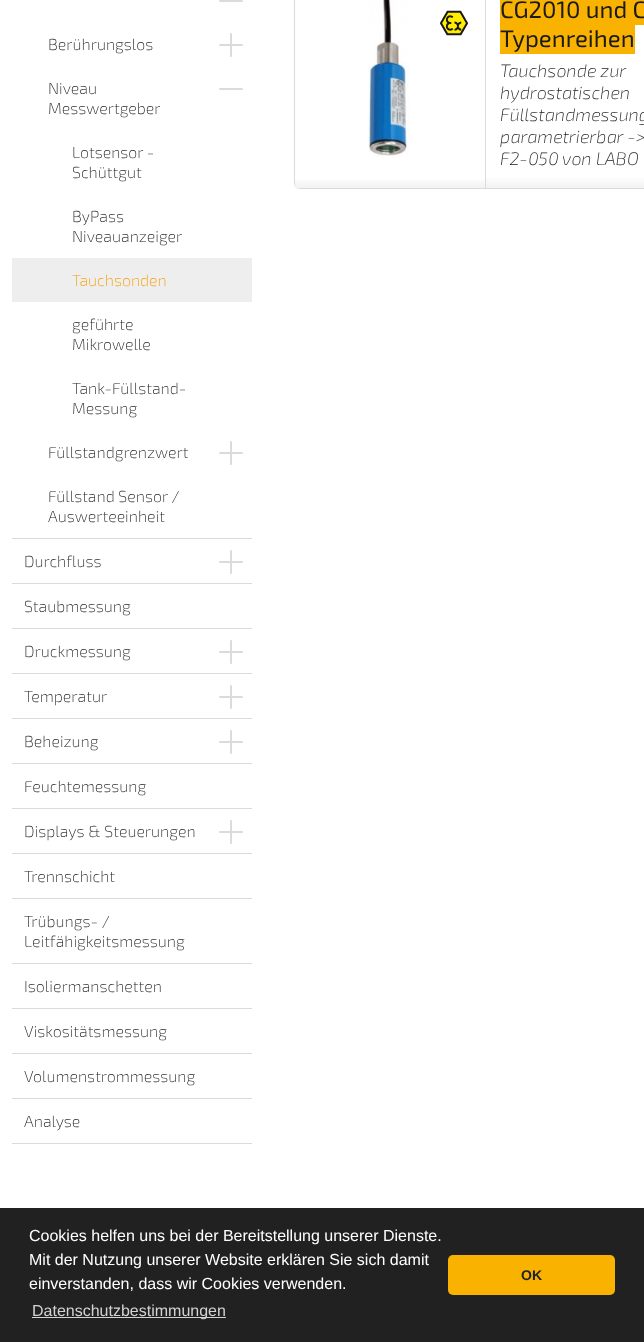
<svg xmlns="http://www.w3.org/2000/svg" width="644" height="1342">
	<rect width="100%" height="100%" fill="#FFFFFF" />
	<rect x="12" y="538" width="240" height="1" fill="#DBDBDB" />
	<image x="219" y="0" width="24" height="2" href="assets/img1.png" />
	<text x="48" y="50" font-family="'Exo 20'" font-size="16" font-weight="200" fill="#1A1A1A">Berührungslos</text>
	<image x="219" y="33" width="24" height="24" href="assets/img2.png" />
	<g font-family="'Exo 20'" font-size="16" font-weight="200" fill="#1A1A1A">
		<text x="48" y="94">Niveau</text>
		<text x="48" y="114">Messwertgeber</text>
	</g>
	<image x="219" y="88" width="24" height="2" href="assets/img1.png" />
	<g font-family="'Exo 20'" font-size="16" font-weight="200" fill="#1A1A1A">
		<text x="72" y="158">Lotsensor -</text>
		<text x="72" y="178">Schüttgut</text>
		<text x="72" y="222">ByPass</text>
		<text x="72" y="242">Niveauanzeiger</text>
	</g>
	<rect x="12" y="258" width="240" height="44" fill="#EEEEEE" />
	<text x="72" y="286" font-family="'Exo 20'" font-size="16" font-weight="200" fill="#F49E00">Tauchsonden</text>
	<g font-family="'Exo 20'" font-size="16" font-weight="200" fill="#1A1A1A">
		<text x="72" y="330">geführte</text>
		<text x="72" y="350">Mikrowelle</text>
		<text x="72" y="394">Tank-Füllstand-</text>
		<text x="72" y="414">Messung</text>
		<text x="48" y="458">Füllstandgrenzwert</text>
	</g>
	<image x="219" y="441" width="24" height="24" href="assets/img2.png" />
	<g font-family="'Exo 20'" font-size="16" font-weight="200" fill="#1A1A1A">
		<text x="48" y="502">Füllstand Sensor /</text>
		<text x="48" y="522">Auswerteeinheit</text>
	</g>
	<rect x="12" y="583" width="240" height="1" fill="#DBDBDB" />
	<text x="24" y="567" font-family="'Exo 20'" font-size="16" font-weight="200" fill="#1A1A1A">Durchfluss</text>
	<image x="219" y="550" width="24" height="24" href="assets/img2.png" />
	<rect x="12" y="628" width="240" height="1" fill="#DBDBDB" />
	<text x="24" y="612" font-family="'Exo 20'" font-size="16" font-weight="200" fill="#1A1A1A">Staubmessung</text>
	<rect x="12" y="673" width="240" height="1" fill="#DBDBDB" />
	<text x="24" y="657" font-family="'Exo 20'" font-size="16" font-weight="200" fill="#1A1A1A">Druckmessung</text>
	<image x="219" y="640" width="24" height="24" href="assets/img2.png" />
	<rect x="12" y="718" width="240" height="1" fill="#DBDBDB" />
	<text x="24" y="702" font-family="'Exo 20'" font-size="16" font-weight="200" fill="#1A1A1A">Temperatur</text>
	<image x="219" y="685" width="24" height="24" href="assets/img2.png" />
	<rect x="12" y="763" width="240" height="1" fill="#DBDBDB" />
	<text x="24" y="747" font-family="'Exo 20'" font-size="16" font-weight="200" fill="#1A1A1A">Beheizung</text>
	<image x="219" y="730" width="24" height="24" href="assets/img2.png" />
	<rect x="12" y="808" width="240" height="1" fill="#DBDBDB" />
	<text x="24" y="792" font-family="'Exo 20'" font-size="16" font-weight="200" fill="#1A1A1A">Feuchtemessung</text>
	<rect x="12" y="853" width="240" height="1" fill="#DBDBDB" />
	<text x="24" y="837" font-family="'Exo 20'" font-size="16" font-weight="200" fill="#1A1A1A">Displays &amp; Steuerungen</text>
	<image x="219" y="820" width="24" height="24" href="assets/img2.png" />
	<rect x="12" y="898" width="240" height="1" fill="#DBDBDB" />
	<text x="24" y="882" font-family="'Exo 20'" font-size="16" font-weight="200" fill="#1A1A1A">Trennschicht</text>
	<rect x="12" y="963" width="240" height="1" fill="#DBDBDB" />
	<g font-family="'Exo 20'" font-size="16" font-weight="200" fill="#1A1A1A">
		<text x="24" y="927">Trübungs- /</text>
		<text x="24" y="947">Leitfähigkeitsmessung</text>
	</g>
	<rect x="12" y="1008" width="240" height="1" fill="#DBDBDB" />
	<text x="24" y="992" font-family="'Exo 20'" font-size="16" font-weight="200" fill="#1A1A1A">Isoliermanschetten</text>
	<rect x="12" y="1053" width="240" height="1" fill="#DBDBDB" />
	<text x="24" y="1037" font-family="'Exo 20'" font-size="16" font-weight="200" fill="#1A1A1A">Viskositätsmessung</text>
	<rect x="12" y="1098" width="240" height="1" fill="#DBDBDB" />
	<text x="24" y="1082" font-family="'Exo 20'" font-size="16" font-weight="200" fill="#1A1A1A">Volumenstrommessung</text>
	<rect x="12" y="1143" width="240" height="1" fill="#DBDBDB" />
	<text x="24" y="1127" font-family="'Exo 20'" font-size="16" font-weight="200" fill="#1A1A1A">Analyse</text>
	<rect x="294.5" y="-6.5" width="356" height="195" rx="5.5" fill="none" stroke="#DBDBDB" />
	<image x="295" y="180" width="190" height="8" href="assets/img3.png" />
	<image x="368" y="0" width="41" height="157" href="assets/img4.png" />
	<image x="485" y="170" width="159" height="18" href="assets/img5.png" />
	<rect x="485" y="0" width="1" height="170" fill="#DBDBDB" />
	<rect x="500" y="0" width="144" height="25" fill="#F9B200" />
	<text x="500" y="18" font-family="'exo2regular'" font-size="24" fill="#1A1A1A">CG2010 und C</text>
	<rect x="500" y="25" width="135" height="29" fill="#F9B200" />
	<text x="500" y="47" font-family="'exo2regular'" font-size="24" fill="#1A1A1A">Typenreihen</text>
	<g font-family="'Exo 20'" font-size="18" font-weight="200" font-style="italic" fill="#1A1A1A">
		<text x="500" y="77">Tauchsonde zur</text>
		<text x="500" y="99">hydrostatischen</text>
		<text x="500" y="121">Füllstandmessung</text>
		<text x="500" y="143">parametrierbar -&gt;</text>
		<text x="500" y="165">F2-050 von LABO</text>
	</g>
	<image x="440" y="10" width="28" height="26" href="assets/img6.png" />
	<rect x="0" y="1208" width="644" height="134" fill="#212121" />
	<g font-family="Liberation Sans" font-size="16" fill="#FFFFFF">
		<text x="29" y="1241">Cookies helfen uns bei der Bereitstellung unserer Dienste.</text>
		<text x="29" y="1265">Mit der Nutzung unserer Website erklären Sie sich damit</text>
		<text x="29" y="1289">einverstanden, dass wir Cookies verwenden.</text>
	</g>
	<rect x="32" y="1317" width="194" height="1" fill="#D3D3D3" />
	<text x="32" y="1316" font-family="Liberation Sans" font-size="16" fill="#D3D3D3">Datenschutzbestimmungen</text>
	<rect x="448" y="1255" width="167" height="40" rx="5" fill="#F9B200" />
	<text x="521" y="1280" font-family="Liberation Sans" font-size="14" font-weight="700" fill="#212121">OK</text>
</svg>
